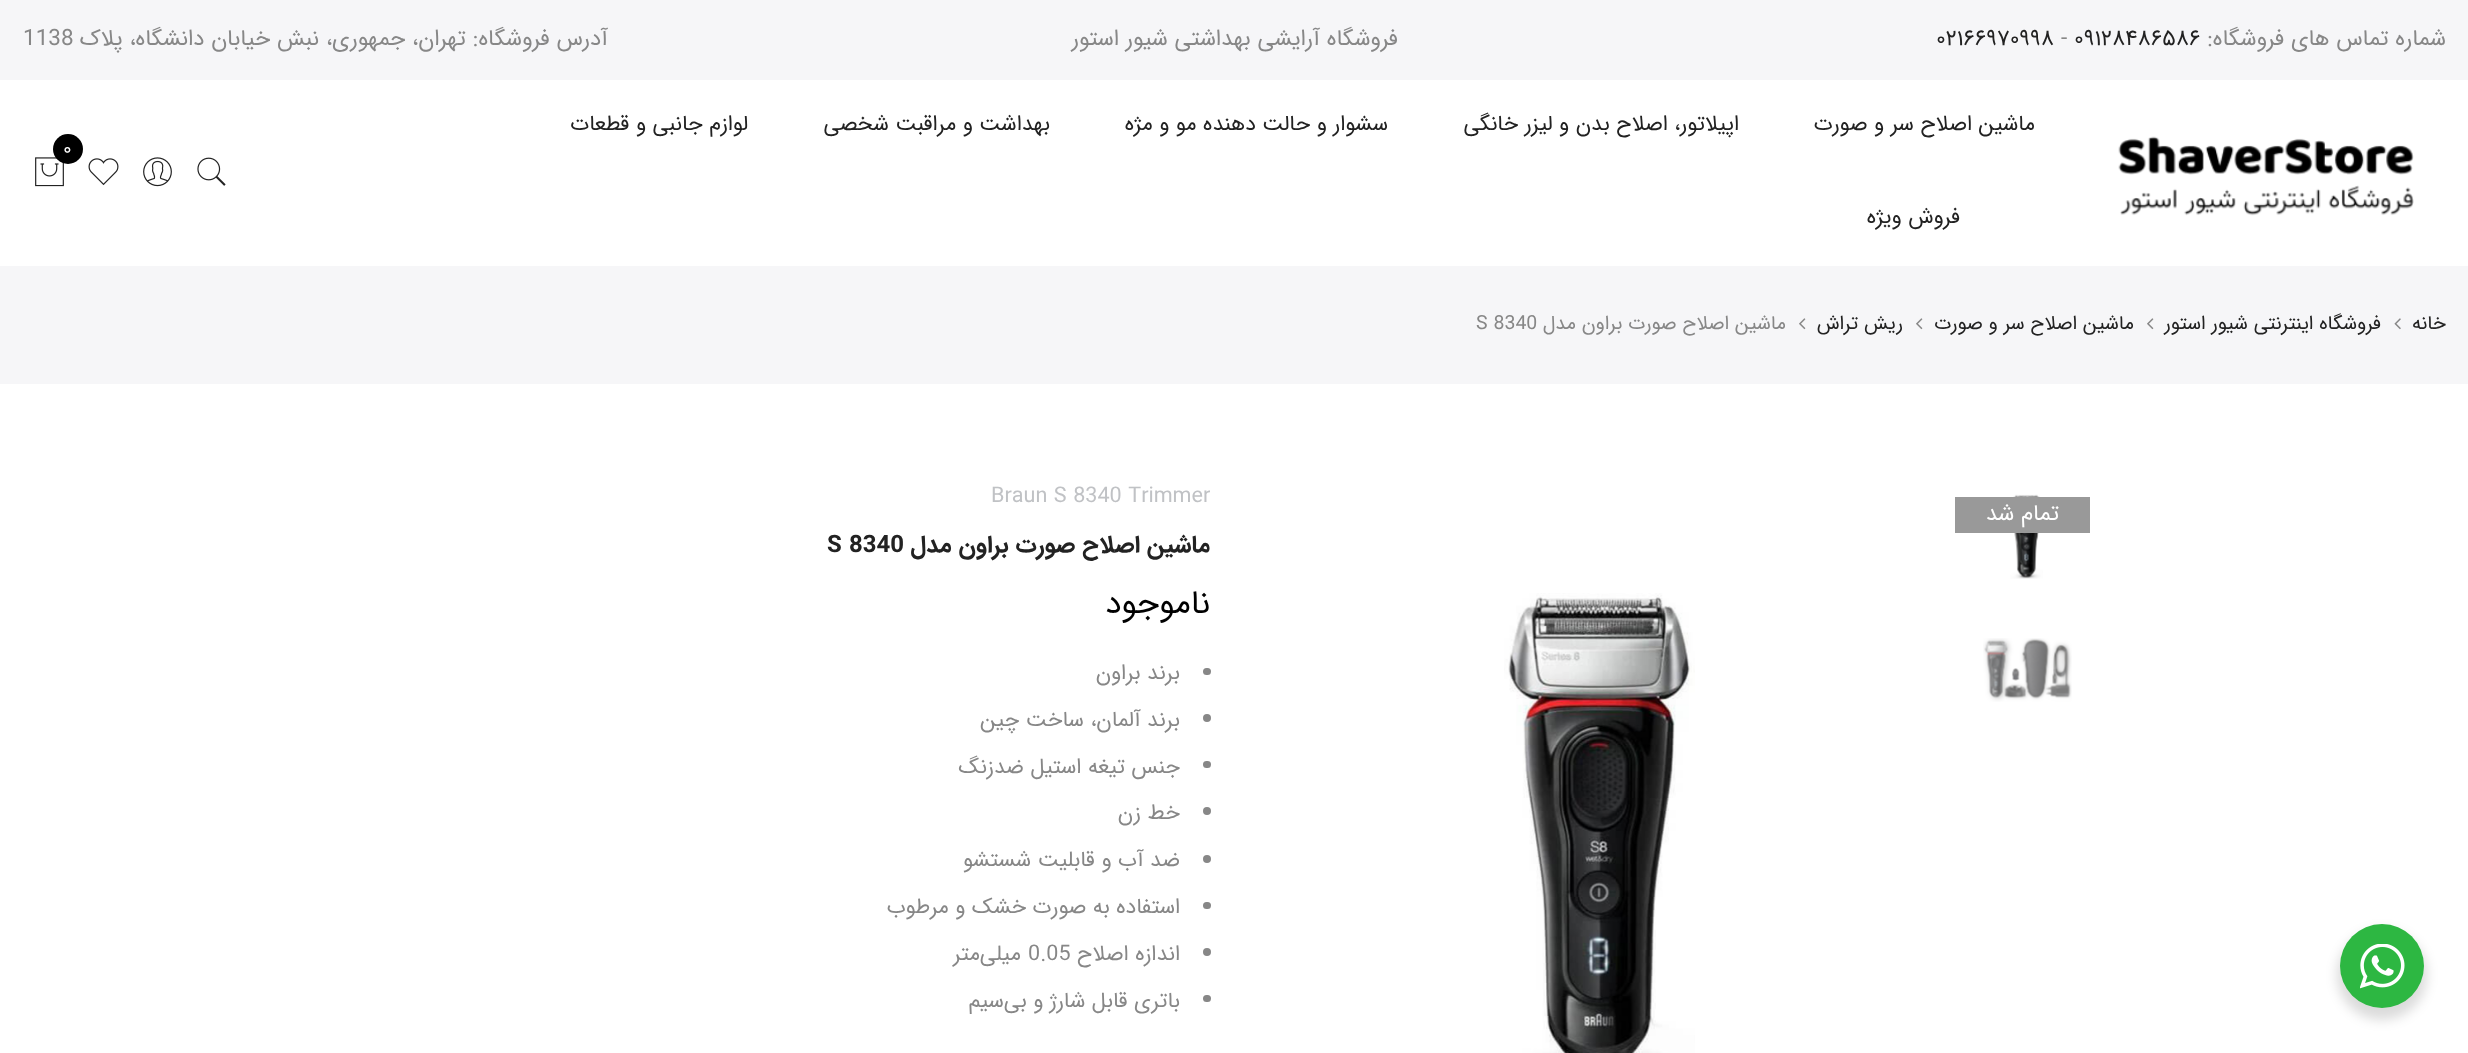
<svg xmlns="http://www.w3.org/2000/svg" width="2468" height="1053">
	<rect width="100%" height="100%" fill="#FFFFFF" />
	<rect x="0" y="0" width="2468" height="80" fill="#F6F6F8" />
	<text x="2446" y="45" font-family="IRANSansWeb" font-size="22.5" direction="rtl" fill="#878787">شماره تماس های فروشگاه:</text>
	<text x="2074" y="45" font-family="IRANSansWeb" font-size="22.5" fill="#222222">۰۹۱۲۸۴۸۶۵۸۶</text>
	<text x="2061" y="45" font-family="IRANSansWeb" font-size="22.5" fill="#878787">-</text>
	<text x="1936" y="45" font-family="IRANSansWeb" font-size="22.5" fill="#222222">۰۲۱۶۶۹۷۰۹۹۸</text>
	<g font-family="IRANSansWeb" font-size="22.5" direction="rtl" fill="#878787">
		<text x="1398" y="45">فروشگاه آرایشی بهداشتی شیور استور</text>
		<text x="608" y="45">آدرس فروشگاه: تهران، جمهوری، نبش خیابان دانشگاه، پلاک</text>
	</g>
	<text x="23" y="45" font-family="IRANSansWeb" font-size="22.5" fill="#878787">1138</text>
	<image x="2118" y="136" width="296" height="80" href="assets/img1.png" />
	<g font-family="IRANSansWeb" font-size="21.6" direction="rtl" fill="#222222">
		<text x="2035" y="130">ماشین اصلاح سر و صورت</text>
		<text x="1739" y="130">اپیلاتور، اصلاح بدن و لیزر خانگی</text>
		<text x="1388" y="130">سشوار و حالت دهنده مو و مژه</text>
		<text x="1050" y="130">بهداشت و مراقبت شخصی</text>
		<text x="748" y="130">لوازم جانبی و قطعات</text>
		<text x="1960" y="223">فروش ویژه</text>
	</g>
	<image x="35" y="157" width="29" height="30" href="assets/img2.png" />
	<circle cx="68" cy="149" r="15" fill="#000000" />
	<text x="63" y="154" font-family="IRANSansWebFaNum" font-size="18" fill="#FFFFFF">0</text>
	<image x="197" y="157" width="29" height="29" href="assets/img3.png" />
	<image x="143" y="157" width="29" height="30" href="assets/img4.png" />
	<image x="88" y="158" width="31" height="28" href="assets/img5.png" />
	<rect x="0" y="266" width="2468" height="118" fill="#F6F6F8" />
	<text x="2446" y="329" font-family="IRANSansWeb" font-size="19.5" direction="rtl" fill="#222222">خانه</text>
	<image x="2394" y="318" width="7" height="12" href="assets/img6.png" />
	<text x="2381" y="329" font-family="IRANSansWeb" font-size="19.5" direction="rtl" fill="#222222">فروشگاه اینترنتی شیور استور</text>
	<image x="2147" y="318" width="7" height="12" href="assets/img7.png" />
	<text x="2134" y="329" font-family="IRANSansWeb" font-size="19.5" direction="rtl" fill="#222222">ماشین اصلاح سر و صورت</text>
	<image x="1916" y="318" width="7" height="12" href="assets/img7.png" />
	<text x="1903" y="329" font-family="IRANSansWeb" font-size="19.5" direction="rtl" fill="#222222">ریش تراش</text>
	<image x="1799" y="318" width="7" height="12" href="assets/img7.png" />
	<text x="1786" y="329" font-family="IRANSansWeb" font-size="19.5" direction="rtl" fill="#878787">ماشین اصلاح صورت براون مدل</text>
	<text x="1476" y="329" font-family="IRANSansWeb" font-size="19.5" fill="#878787">S 8340</text>
	<image x="2010" y="494" width="33" height="85" href="assets/img8.png" />
	<image x="1983" y="638" width="89" height="64" href="assets/img9.png" />
	<image x="1504" y="593" width="191" height="460" href="assets/img10.png" />
	<rect x="1955" y="497" width="135" height="36" fill="#999999" />
	<text x="2059" y="520" font-family="IRANSansWeb" font-size="22.5" direction="rtl" fill="#FFFFFF">تمام شد</text>
	<text x="991" y="502" font-family="IRANSansWeb" font-size="21.6" fill="#C0C2C5">Braun S 8340 Trimmer</text>
	<text x="1210" y="552" font-family="IRANSansWeb" font-size="24" font-weight="700" direction="rtl" fill="#222222">ماشین اصلاح صورت براون مدل</text>
	<text x="827" y="552" font-family="IRANSansWeb" font-size="24" font-weight="700" fill="#222222">S 8340</text>
	<text x="1210" y="613" font-family="IRANSansWeb" font-size="33" direction="rtl" fill="#000000">ناموجود</text>
	<rect x="1203" y="668" width="8" height="7" rx="3.5" fill="#878787" />
	<text x="1180" y="679" font-family="IRANSansWeb" font-size="21.6" direction="rtl" fill="#878787">برند براون</text>
	<circle cx="1207" cy="718" r="4" fill="#878787" />
	<text x="1180" y="726" font-family="IRANSansWeb" font-size="21.6" direction="rtl" fill="#878787">برند آلمان، ساخت چین</text>
	<rect x="1203" y="761" width="8" height="7" rx="3.5" fill="#878787" />
	<text x="1180" y="773" font-family="IRANSansWeb" font-size="21.6" direction="rtl" fill="#878787">جنس تیغه استیل ضدزنگ</text>
	<circle cx="1207" cy="811" r="4" fill="#878787" />
	<text x="1180" y="819" font-family="IRANSansWeb" font-size="21.6" direction="rtl" fill="#878787">خط زن</text>
	<circle cx="1207" cy="859" r="4" fill="#878787" />
	<text x="1180" y="866" font-family="IRANSansWeb" font-size="21.6" direction="rtl" fill="#878787">ضد آب و قابلیت شستشو</text>
	<rect x="1203" y="902" width="8" height="7" rx="3.5" fill="#878787" />
	<text x="1180" y="913" font-family="IRANSansWeb" font-size="21.6" direction="rtl" fill="#878787">استفاده به صورت خشک و مرطوب</text>
	<circle cx="1207" cy="952" r="4" fill="#878787" />
	<text x="1180" y="960" font-family="IRANSansWeb" font-size="21.6" direction="rtl" fill="#878787">اندازه اصلاح</text>
	<text x="1028" y="960" font-family="IRANSansWeb" font-size="21.6" fill="#878787">0.05</text>
	<text x="1021" y="960" font-family="IRANSansWeb" font-size="21.6" direction="rtl" fill="#878787">میلی‌متر</text>
	<rect x="1203" y="995" width="8" height="7" rx="3.5" fill="#878787" />
	<text x="1180" y="1007" font-family="IRANSansWeb" font-size="21.6" direction="rtl" fill="#878787">باتری قابل شارژ و بی‌سیم</text>
	<rect x="2337" y="930" width="90" height="90" rx="45" fill="#000000" fill-opacity="0.14" filter="blur(6px)" />
	<circle cx="2382" cy="966" r="42" fill="#2DB742" />
	<image x="2360" y="944" width="45" height="45" href="assets/img11.png" />
</svg>
